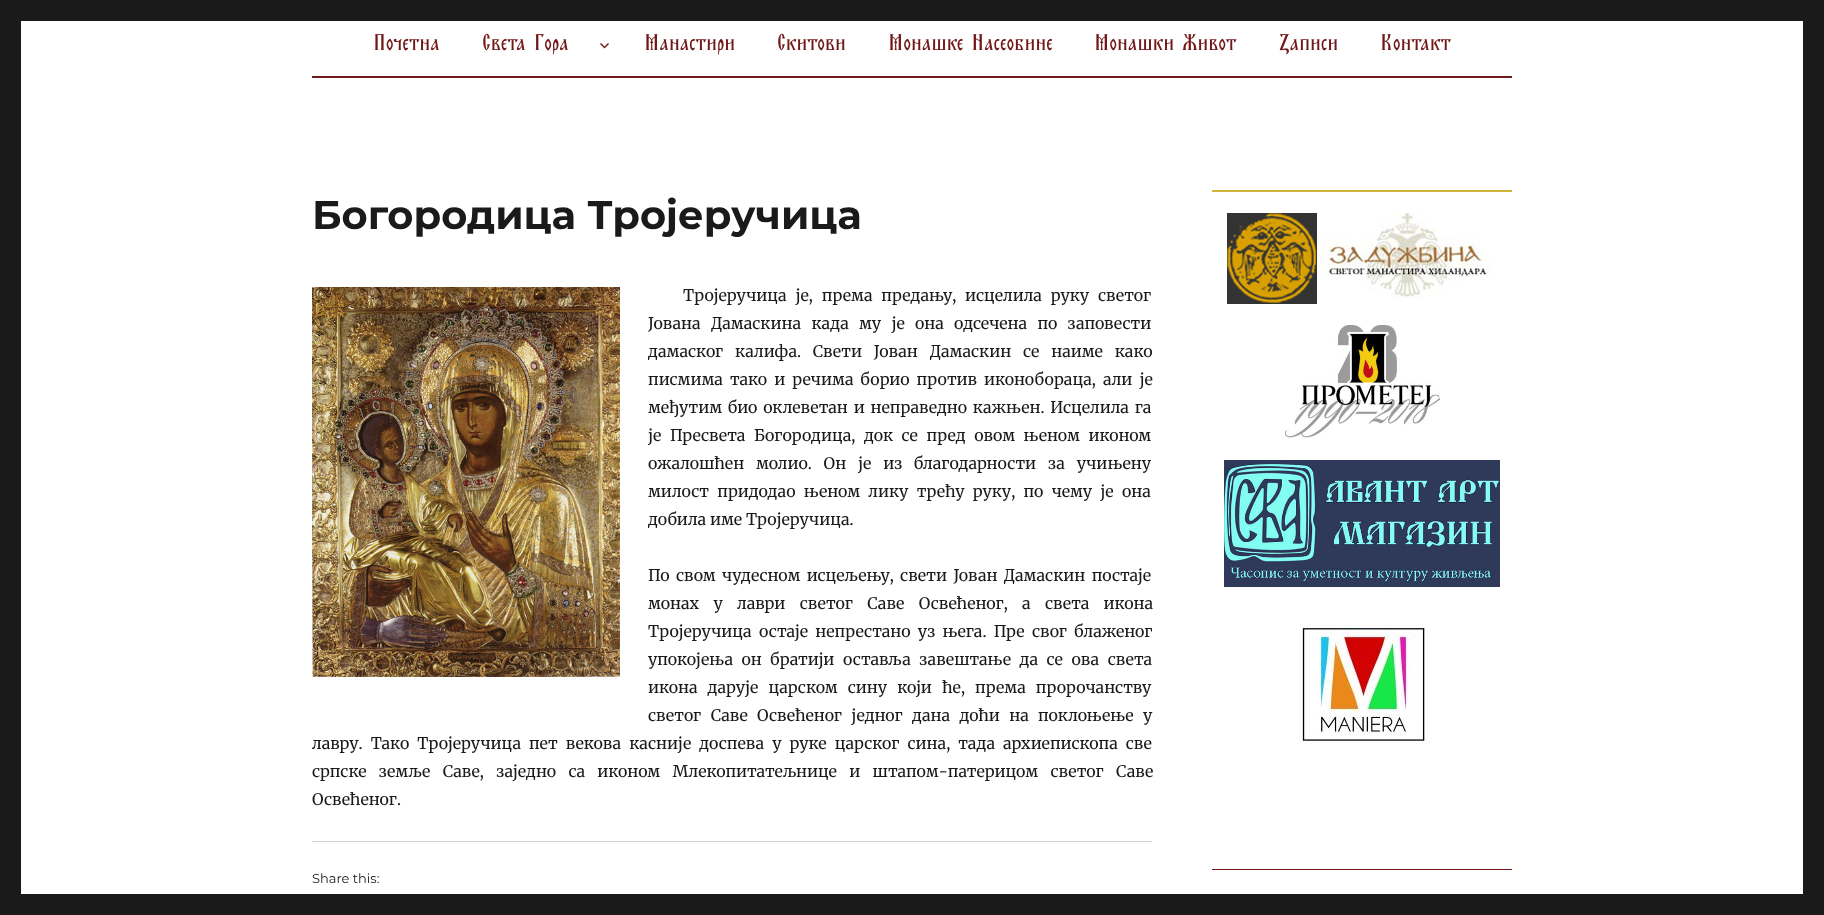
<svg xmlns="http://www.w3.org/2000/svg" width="1824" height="915">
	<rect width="100%" height="100%" fill="#1A1A1A" />
	<rect x="21" y="21" width="1782" height="873" fill="#FFFFFF" />
	<rect x="312" y="76" width="1200" height="2" fill="#721818" />
	<image x="374" y="34" width="65" height="17" href="assets/img1.png" />
	<image x="483" y="33" width="85" height="22" href="assets/img2.png" />
	<image x="600" y="43" width="9" height="6" href="assets/img3.png" />
	<image x="645" y="34" width="90" height="21" href="assets/img4.png" />
	<image x="778" y="33" width="67" height="18" href="assets/img5.png" />
	<image x="889" y="34" width="163" height="17" href="assets/img6.png" />
	<image x="1095" y="34" width="142" height="17" href="assets/img7.png" />
	<image x="1279" y="34" width="59" height="21" href="assets/img8.png" />
	<image x="1381" y="34" width="70" height="17" href="assets/img9.png" />
	<text x="312" y="229" font-family="Montserrat" font-size="40" font-weight="700" fill="#1A1A1A">Богородица Тројеручица</text>
	<image x="312" y="287" width="308" height="390" href="assets/img10.png" />
	<g font-family="Merriweather" font-size="16" fill="#1A1A1A">
		<text x="683" y="301" word-spacing="5">Тројеручица је, према предању, исцелила руку светог</text>
		<text x="648" y="329" word-spacing="6.5">Јована Дамаскина када му је она одсечена по заповести</text>
		<text x="648" y="357" word-spacing="8">дамаског калифа. Свети Јован Дамаскин се наиме како</text>
		<text x="648" y="385" word-spacing="3.25">писмима тако и речима борио против иконобораца, али је</text>
		<text x="648" y="413" word-spacing="2">међутим био оклеветан и неправедно кажњен. Исцелила га</text>
		<text x="648" y="441" word-spacing="4.75">је Пресвета Богородица, док се пред овом њеном иконом</text>
		<text x="648" y="469" word-spacing="8">ожалошћен молио. Он је из благодарности за учињену</text>
		<text x="648" y="497" word-spacing="4.5">милост придодао њеном лику трећу руку, по чему је она</text>
		<text x="648" y="525">добила име Тројеручица.</text>
		<text x="648" y="581" word-spacing="2.5">По свом чудесном исцељењу, свети Јован Дамаскин постаје</text>
		<text x="648" y="609" word-spacing="10.5">монах у лаври светог Саве Освећеног, а света икона</text>
		<text x="648" y="637" word-spacing="3.5">Тројеручица остаје непрестано уз њега. Пре свог блаженог</text>
		<text x="648" y="665" word-spacing="4.75">упокојења он братији оставља завештање да се ова света</text>
		<text x="648" y="693" word-spacing="6.25">икона дарује царском сину који ће, према пророчанству</text>
		<text x="648" y="721" word-spacing="5.5">светог Саве Освећеног једног дана доћи на поклоњење у</text>
		<text x="312" y="749" word-spacing="4.25">лавру. Тако Тројеручица пет векова касније доспева у руке царског сина, тада архиепископа све</text>
		<text x="312" y="777" word-spacing="8.5">српске земље Саве, заједно са иконом Млекопитатељнице и штапом-патерицом светог Саве</text>
		<text x="312" y="805">Освећеног.</text>
	</g>
	<rect x="312" y="841" width="840" height="1" fill="#D1D1D1" />
	<text x="312" y="883" font-family="Montserrat" font-size="13" fill="#1A1A1A">Share this:</text>
	<rect x="1212" y="190" width="300" height="2" fill="#CFB53B" />
	<image x="1227" y="213" width="264" height="91" href="assets/img11.png" />
	<image x="1285" y="325" width="155" height="113" href="assets/img12.png" />
	<image x="1224" y="460" width="276" height="127" href="assets/img13.png" />
	<image x="1299" y="624" width="132" height="120" href="assets/img14.png" />
	<rect x="1212" y="869" width="300" height="1" fill="#721818" />
</svg>
